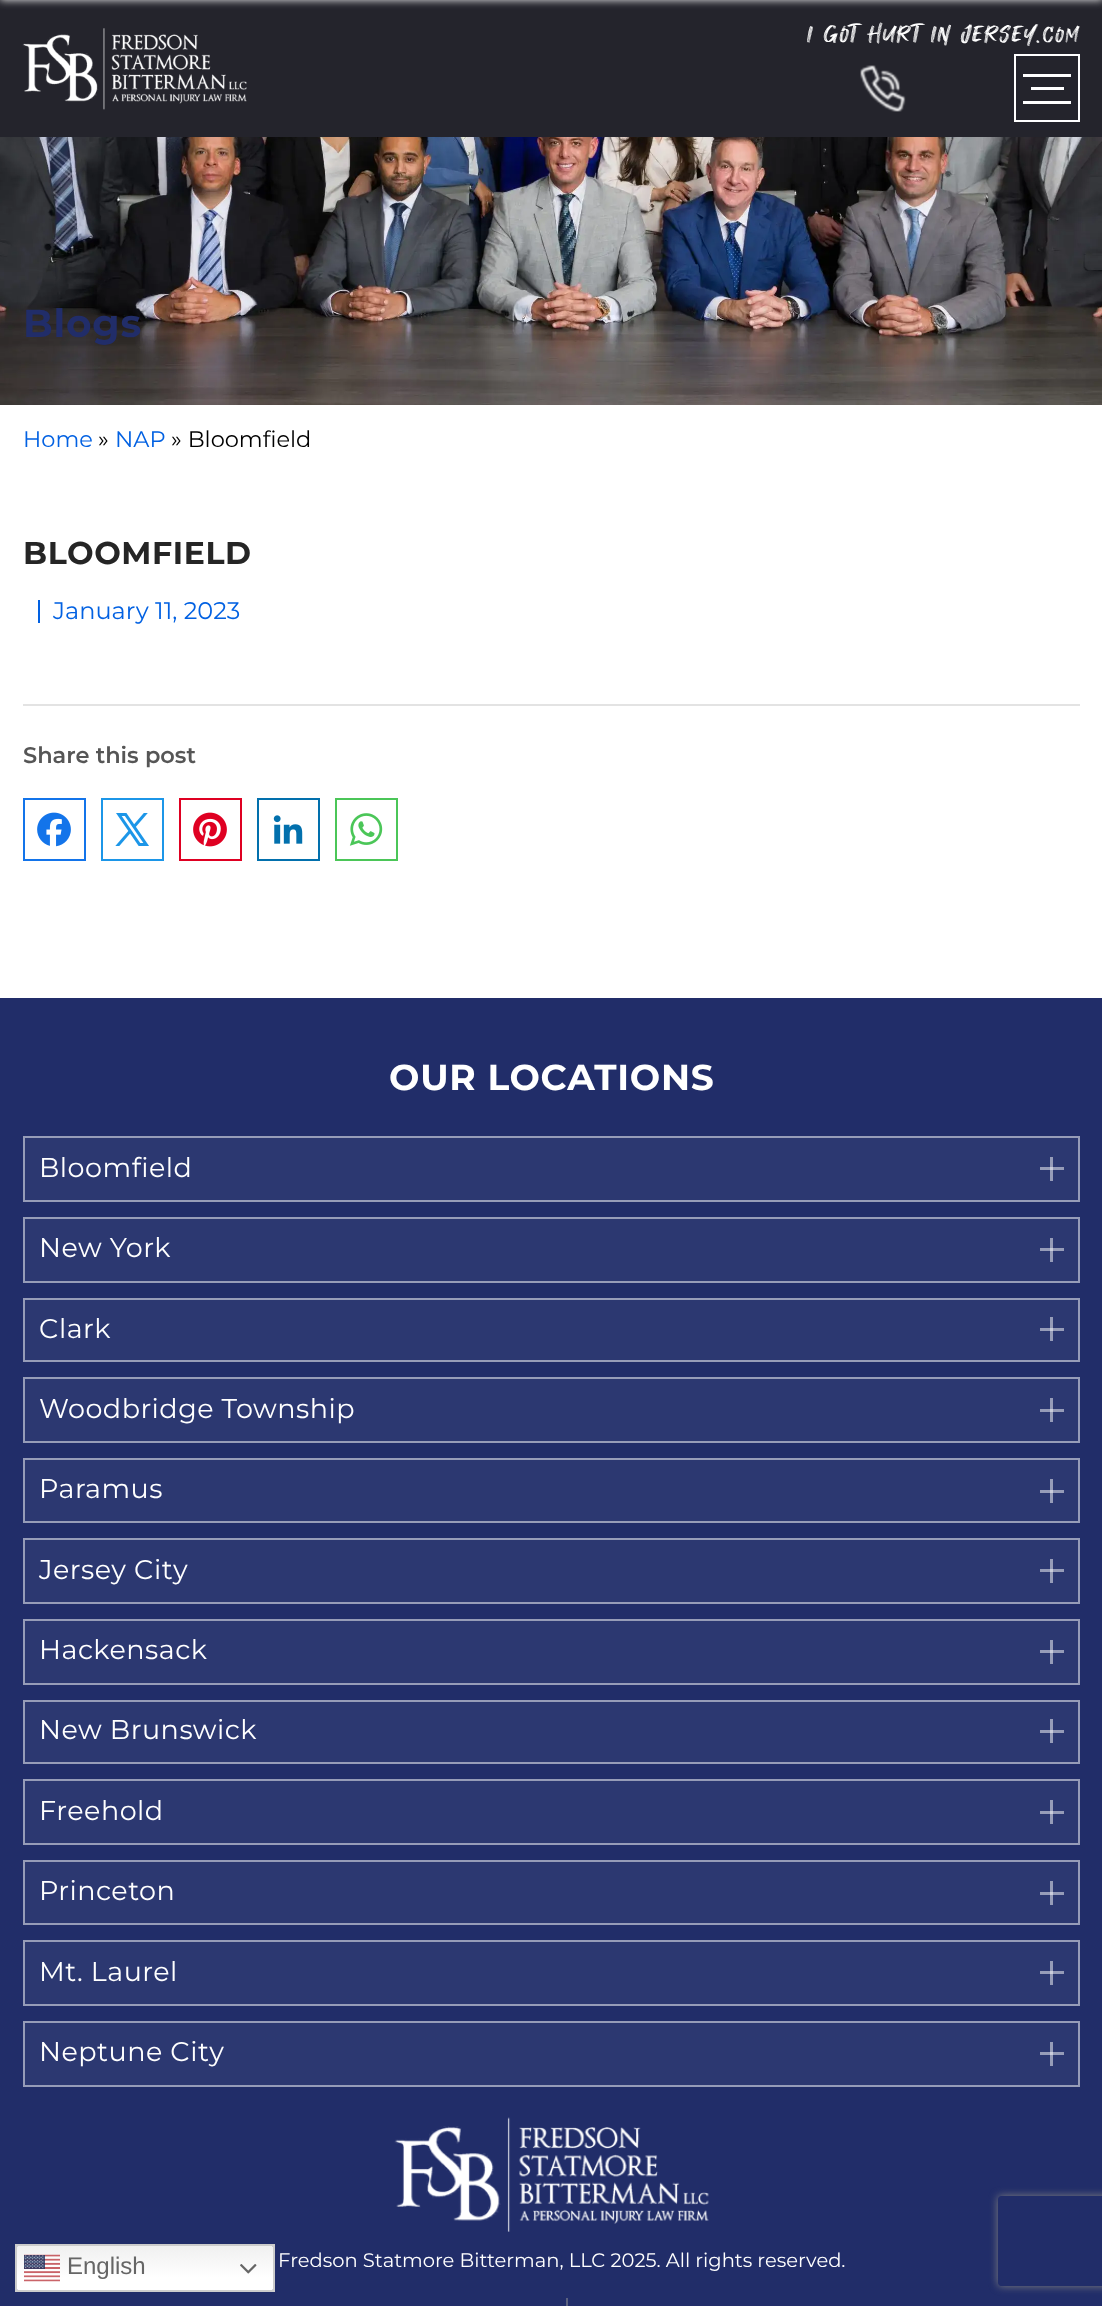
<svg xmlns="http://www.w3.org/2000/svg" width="1102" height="2306">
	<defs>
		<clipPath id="clip1"><path d="M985 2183H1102V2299H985ZM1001 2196H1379C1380.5 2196 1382 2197.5 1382 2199V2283C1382 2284.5 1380.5 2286 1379 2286H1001C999.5 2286 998 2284.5 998 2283V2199C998 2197.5 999.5 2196 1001 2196Z" clip-rule="evenodd" /></clipPath>
		<linearGradient id="g1" gradientUnits="userSpaceOnUse" x1="145" y1="2244" x2="145" y2="2292"><stop offset="0" stop-color="#EFEFEF" /><stop offset="0.7" stop-color="#FFFFFF" /></linearGradient>
	</defs>
	<rect width="100%" height="100%" fill="#FFFFFF" />
	<rect x="0" y="0" width="1102" height="137" fill="#24242C" />
	<rect x="0" y="-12" width="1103" height="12" fill="#EEEEEE" filter="blur(4px)" />
	<image x="22" y="28" width="225" height="82" href="assets/img1.png" />
	<text x="807" y="42" font-family="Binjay" font-size="22.5" letter-spacing="1.5" fill="#FFFFFF">I GOT HURT IN JERSEY.</text>
	<text x="1043" y="42" font-family="Binjay" font-size="21" letter-spacing="1.5" fill="#FFFFFF">COM</text>
	<image x="860" y="65" width="46" height="47" href="assets/img2.png" />
	<rect x="1015" y="55" width="64" height="66" fill="none" stroke="#FFFFFF" stroke-width="2" />
	<rect x="1023" y="74" width="48" height="3" fill="#FFFFFF" />
	<rect x="1031" y="87" width="33" height="3" fill="#FFFFFF" />
	<rect x="1023" y="101" width="48" height="3" fill="#FFFFFF" />
	<image x="0" y="137" width="1102" height="268" href="assets/img3.png" />
	<text x="23" y="337" font-family="Montserrat" font-size="39" font-weight="700" letter-spacing="0.75" fill="#212D69">Blogs</text>
	<text x="23" y="447" font-family="Montserrat" font-size="22.5" fill="#0261E2">Home</text>
	<text x="98" y="447" font-family="Montserrat" font-size="22.5" fill="#000000">»</text>
	<text x="115" y="447" font-family="Montserrat" font-size="22.5" fill="#0261E2">NAP</text>
	<text x="171" y="447" font-family="Montserrat" font-size="22.5" fill="#000000">» Bloomfield</text>
	<text x="23" y="564" font-family="Montserrat" font-size="31.5" font-weight="700" letter-spacing="0.6" fill="#252525">BLOOMFIELD</text>
	<rect x="38" y="600" width="2" height="23" fill="#0261E2" />
	<text x="53" y="619" font-family="Montserrat" font-size="24" fill="#0261E2">January 11, 2023</text>
	<rect x="23" y="704" width="1057" height="2" fill="#E3E3E3" />
	<text x="23" y="763" font-family="Montserrat" font-size="22.5" font-weight="600" fill="#565656">Share this post</text>
	<rect x="24" y="799" width="61" height="61" fill="none" stroke="#1374EA" stroke-width="2" />
	<image x="37" y="812" width="34" height="35" href="assets/img4.png" />
	<rect x="102" y="799" width="61" height="61" fill="none" stroke="#1C96E8" stroke-width="2" />
	<image x="115" y="813" width="34" height="33" href="assets/img5.png" />
	<rect x="180" y="799" width="61" height="61" fill="none" stroke="#DF0022" stroke-width="2" />
	<image x="193" y="812" width="34" height="35" href="assets/img6.png" />
	<rect x="258" y="799" width="61" height="61" fill="none" stroke="#0270AD" stroke-width="2" />
	<image x="273" y="815" width="30" height="29" href="assets/img7.png" />
	<rect x="336" y="799" width="61" height="61" fill="none" stroke="#4BC658" stroke-width="2" />
	<image x="349" y="813" width="34" height="33" href="assets/img8.png" />
	<rect x="0" y="998" width="1102" height="1308" fill="#212D69" />
	<text x="389" y="1090" font-family="Montserrat" font-size="36" font-weight="700" letter-spacing="0.75" fill="#FFFFFF">OUR LOCATIONS</text>
	<rect x="25" y="1138" width="1053" height="62" fill="#2C3871" />
	<rect x="1050" y="1157" width="3" height="24" fill="#969CB8" />
	<rect x="24" y="1137" width="1055" height="64" fill="none" stroke="#969CB8" stroke-width="2" />
	<text x="39" y="1177" font-family="Montserrat" font-size="27" letter-spacing="0.5" fill="#FFFFFF">Bloomfield</text>
	<rect x="1040" y="1167" width="24" height="3" fill="#969CB8" />
	<rect x="1050" y="1167" width="3" height="3" fill="#CBCEDC" />
	<rect x="25" y="1219" width="1053" height="62" fill="#2C3871" />
	<rect x="1050" y="1238" width="3" height="24" fill="#969CB8" />
	<rect x="24" y="1218" width="1055" height="64" fill="none" stroke="#969CB8" stroke-width="2" />
	<text x="39" y="1257" font-family="Montserrat" font-size="27" letter-spacing="0.5" fill="#FFFFFF">New York</text>
	<rect x="1040" y="1248" width="24" height="3" fill="#969CB8" />
	<rect x="1050" y="1248" width="3" height="3" fill="#CBCEDC" />
	<rect x="25" y="1300" width="1053" height="60" fill="#2C3871" />
	<rect x="1050" y="1317" width="3" height="24" fill="#969CB8" />
	<rect x="24" y="1299" width="1055" height="62" fill="none" stroke="#969CB8" stroke-width="2" />
	<text x="39" y="1338" font-family="Montserrat" font-size="27" letter-spacing="0.5" fill="#FFFFFF">Clark</text>
	<rect x="1040" y="1328" width="24" height="3" fill="#969CB8" />
	<rect x="1050" y="1328" width="3" height="3" fill="#CBCEDC" />
	<rect x="25" y="1379" width="1053" height="62" fill="#2C3871" />
	<rect x="1050" y="1398" width="3" height="24" fill="#969CB8" />
	<rect x="24" y="1378" width="1055" height="64" fill="none" stroke="#969CB8" stroke-width="2" />
	<text x="39" y="1418" font-family="Montserrat" font-size="27" letter-spacing="0.5" fill="#FFFFFF">Woodbridge Township</text>
	<rect x="1040" y="1409" width="24" height="3" fill="#969CB8" />
	<rect x="1050" y="1409" width="3" height="3" fill="#CBCEDC" />
	<rect x="25" y="1460" width="1053" height="61" fill="#2C3871" />
	<rect x="1050" y="1479" width="3" height="24" fill="#969CB8" />
	<rect x="24" y="1459" width="1055" height="63" fill="none" stroke="#969CB8" stroke-width="2" />
	<text x="39" y="1498" font-family="Montserrat" font-size="27" letter-spacing="0.5" fill="#FFFFFF">Paramus</text>
	<rect x="1040" y="1490" width="24" height="3" fill="#969CB8" />
	<rect x="1050" y="1490" width="3" height="3" fill="#CBCEDC" />
	<rect x="25" y="1540" width="1053" height="62" fill="#2C3871" />
	<rect x="1050" y="1559" width="3" height="24" fill="#969CB8" />
	<rect x="24" y="1539" width="1055" height="64" fill="none" stroke="#969CB8" stroke-width="2" />
	<text x="39" y="1579" font-family="Montserrat" font-size="27" letter-spacing="0.5" fill="#FFFFFF">Jersey City</text>
	<rect x="1040" y="1569" width="24" height="3" fill="#969CB8" />
	<rect x="1050" y="1569" width="3" height="3" fill="#CBCEDC" />
	<rect x="25" y="1621" width="1053" height="62" fill="#2C3871" />
	<rect x="1050" y="1640" width="3" height="24" fill="#969CB8" />
	<rect x="24" y="1620" width="1055" height="64" fill="none" stroke="#969CB8" stroke-width="2" />
	<text x="39" y="1659" font-family="Montserrat" font-size="27" letter-spacing="0.5" fill="#FFFFFF">Hackensack</text>
	<rect x="1040" y="1650" width="24" height="3" fill="#969CB8" />
	<rect x="1050" y="1650" width="3" height="3" fill="#CBCEDC" />
	<rect x="25" y="1702" width="1053" height="60" fill="#2C3871" />
	<rect x="1050" y="1719" width="3" height="24" fill="#969CB8" />
	<rect x="24" y="1701" width="1055" height="62" fill="none" stroke="#969CB8" stroke-width="2" />
	<text x="39" y="1739" font-family="Montserrat" font-size="27" letter-spacing="0.5" fill="#FFFFFF">New Brunswick</text>
	<rect x="1040" y="1730" width="24" height="3" fill="#969CB8" />
	<rect x="1050" y="1730" width="3" height="3" fill="#CBCEDC" />
	<rect x="25" y="1781" width="1053" height="62" fill="#2C3871" />
	<rect x="1050" y="1800" width="3" height="24" fill="#969CB8" />
	<rect x="24" y="1780" width="1055" height="64" fill="none" stroke="#969CB8" stroke-width="2" />
	<text x="39" y="1820" font-family="Montserrat" font-size="27" letter-spacing="0.5" fill="#FFFFFF">Freehold</text>
	<rect x="1040" y="1811" width="24" height="3" fill="#969CB8" />
	<rect x="1050" y="1811" width="3" height="3" fill="#CBCEDC" />
	<rect x="25" y="1862" width="1053" height="61" fill="#2C3871" />
	<rect x="1050" y="1881" width="3" height="24" fill="#969CB8" />
	<rect x="24" y="1861" width="1055" height="63" fill="none" stroke="#969CB8" stroke-width="2" />
	<text x="39" y="1900" font-family="Montserrat" font-size="27" letter-spacing="0.5" fill="#FFFFFF">Princeton</text>
	<rect x="1040" y="1892" width="24" height="3" fill="#969CB8" />
	<rect x="1050" y="1892" width="3" height="3" fill="#CBCEDC" />
	<rect x="25" y="1942" width="1053" height="62" fill="#2C3871" />
	<rect x="1050" y="1961" width="3" height="24" fill="#969CB8" />
	<rect x="24" y="1941" width="1055" height="64" fill="none" stroke="#969CB8" stroke-width="2" />
	<text x="39" y="1981" font-family="Montserrat" font-size="27" letter-spacing="0.5" fill="#FFFFFF">Mt. Laurel</text>
	<rect x="1040" y="1971" width="24" height="3" fill="#969CB8" />
	<rect x="1050" y="1971" width="3" height="3" fill="#CBCEDC" />
	<rect x="25" y="2023" width="1053" height="62" fill="#2C3871" />
	<rect x="1050" y="2042" width="3" height="24" fill="#969CB8" />
	<rect x="24" y="2022" width="1055" height="64" fill="none" stroke="#969CB8" stroke-width="2" />
	<text x="39" y="2061" font-family="Montserrat" font-size="27" letter-spacing="0.5" fill="#FFFFFF">Neptune City</text>
	<rect x="1040" y="2052" width="24" height="3" fill="#969CB8" />
	<rect x="1050" y="2052" width="3" height="3" fill="#CBCEDC" />
	<image x="394" y="2117" width="315" height="115" href="assets/img9.png" />
	<text x="278" y="2267" font-family="Montserrat" font-size="19.5" fill="#FFFFFF">Fredson Statmore Bitterman, LLC 2025. All rights reserved.</text>
	<rect x="566" y="2298" width="2" height="8" fill="#5B617F" />
	<g clip-path="url(#clip1)">
		<rect x="998" y="2196" width="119" height="90" rx="3" fill="#808080" filter="blur(4px)" />
	</g>
	<rect x="15" y="2244" width="260" height="48" rx="8" fill="url(#g1)" />
	<rect x="16" y="2245" width="258" height="46" fill="none" stroke="#CCCCCC" stroke-width="2" />
	<image x="24" y="2254" width="36" height="28" href="assets/img10.png" />
	<text x="67" y="2274" font-family="Liberation Sans" font-size="24" fill="#666666">English</text>
	<image x="240" y="2264" width="17" height="10" href="assets/img11.png" />
</svg>
